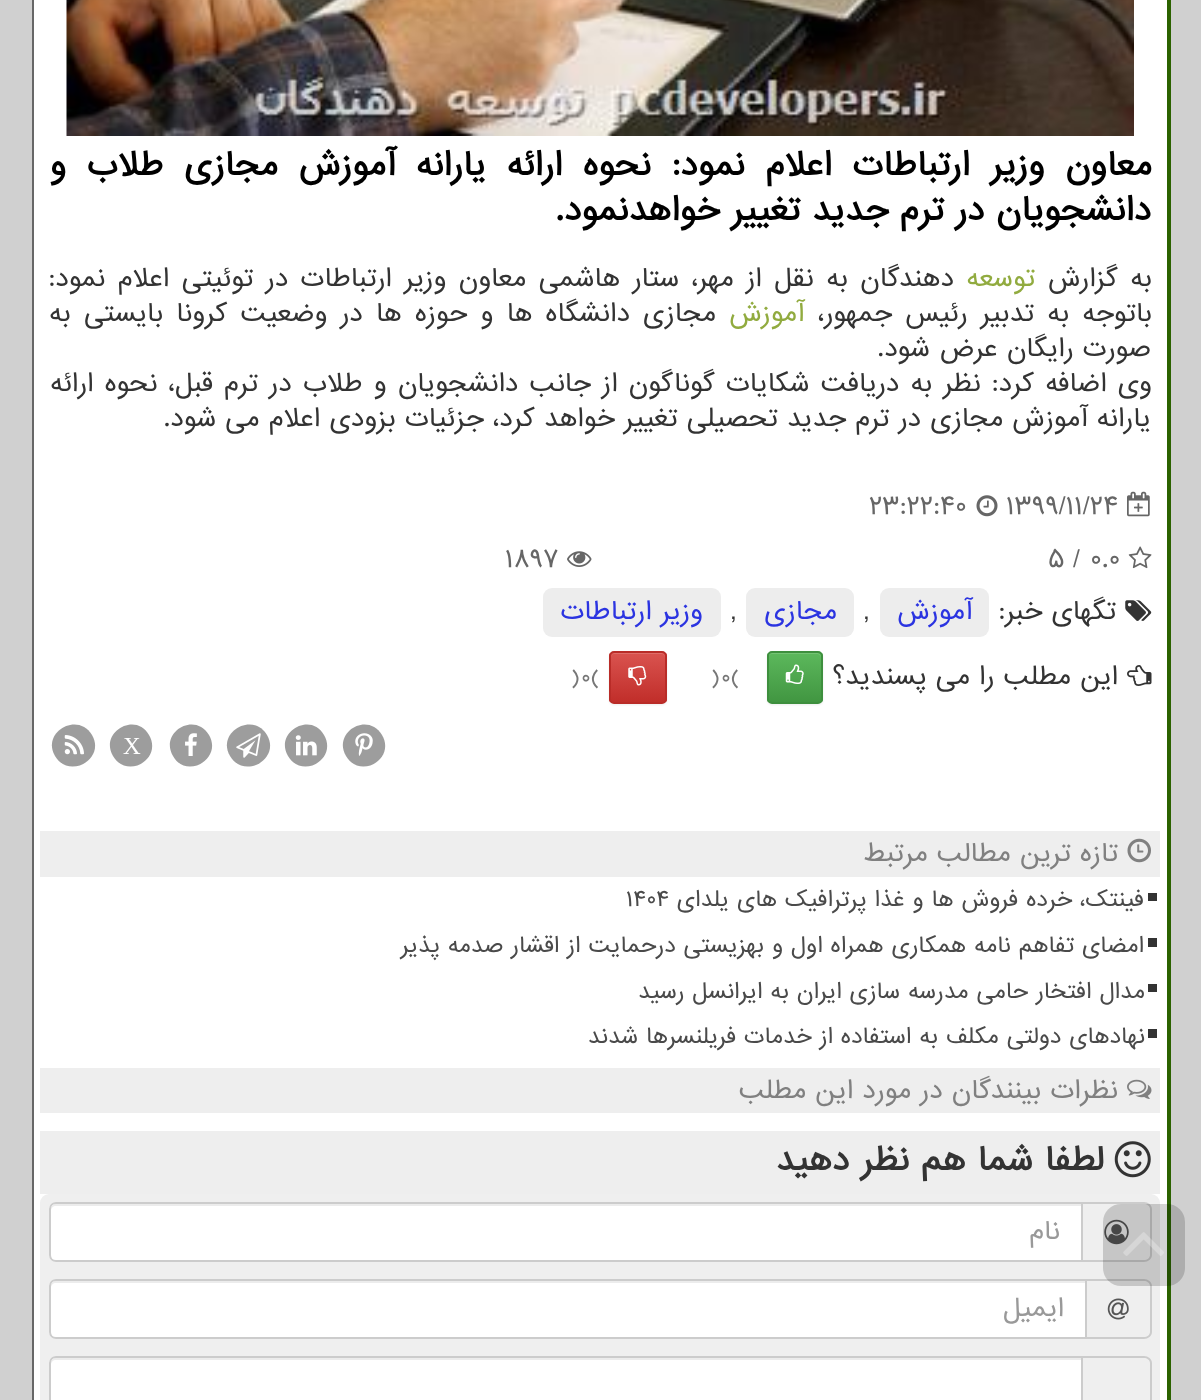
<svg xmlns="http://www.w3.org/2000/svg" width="1201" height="1400">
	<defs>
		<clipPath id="clip1"><rect x="767" y="651" width="56" height="53" rx="5" /></clipPath>
		<linearGradient id="g1" gradientUnits="userSpaceOnUse" x1="795" y1="653" x2="795" y2="702"><stop offset="0" stop-color="#5CB85C" /><stop offset="1" stop-color="#419641" /></linearGradient>
		<clipPath id="clip2"><rect x="609" y="651" width="58" height="53" rx="5" /></clipPath>
		<linearGradient id="g2" gradientUnits="userSpaceOnUse" x1="638" y1="653" x2="638" y2="702"><stop offset="0" stop-color="#D9534F" /><stop offset="1" stop-color="#C12E2A" /></linearGradient>
	</defs>
	<rect width="100%" height="100%" fill="#D0D0D0" />
	<rect x="34" y="0" width="1133" height="1400" fill="#FFFFFF" />
	<path d="M1171-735V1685L1167 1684V-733Z" fill="#2B6200" />
	<rect x="32" y="0" width="2" height="1400" fill="#676767" />
	<image x="66" y="0" width="1068" height="136" href="assets/img1.png" />
	<g font-family="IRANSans" font-size="31.5" font-weight="700" direction="rtl" fill="#000000">
		<text x="1152" y="175" word-spacing="8.9">معاون وزیر ارتباطات اعلام نمود: نحوه ارائه یارانه آموزش مجازی طلاب و</text>
		<text x="1151" y="220">دانشجویان در ترم جدید تغییر خواهدنمود.</text>
	</g>
	<text x="1152" y="286" word-spacing="3.25" font-family="IRANSans" font-size="24.5" direction="rtl" fill="#333333">به گزارش</text>
	<text x="1035" y="286" font-family="IRANSans" font-size="24.5" direction="rtl" fill="#91AB3F">توسعه</text>
	<g font-family="IRANSans" font-size="24.5" direction="rtl" fill="#333333">
		<text x="954" y="286" word-spacing="3.25">دهندگان به نقل از مهر، ستار هاشمی معاون وزیر ارتباطات در توئیتی اعلام نمود:</text>
		<text x="1152" y="321" word-spacing="4">باتوجه به تدبیر رئیس جمهور،</text>
	</g>
	<text x="804" y="321" font-family="IRANSans" font-size="24.5" direction="rtl" fill="#91AB3F">آموزش</text>
	<g font-family="IRANSans" font-size="24.5" direction="rtl" fill="#333333">
		<text x="716" y="321" word-spacing="4">مجازی دانشگاه ها و حوزه ها در وضعیت کرونا بایستی به</text>
		<text x="1151" y="356">صورت رایگان عرض شود.</text>
		<text x="1152" y="391" word-spacing="2">وی اضافه کرد: نظر به دریافت شکایات گوناگون از جانب دانشجویان و طلاب در ترم قبل، نحوه ارائه</text>
		<text x="1151" y="426">یارانه آموزش مجازی در ترم جدید تحصیلی تغییر خواهد کرد، جزئیات بزودی اعلام می شود.</text>
	</g>
	<image x="1127" y="491" width="23" height="26" href="assets/img2.png" />
	<text x="1006" y="514" font-family="IRANSans" font-size="24.5" fill="#666666">1399/11/24</text>
	<image x="976" y="495" width="22" height="22" href="assets/img3.png" />
	<text x="869" y="514" font-family="IRANSans" font-size="24.5" fill="#666666">23:22:40</text>
	<image x="1128" y="546" width="24" height="23" href="assets/img4.png" />
	<g font-family="IRANSans" font-size="24.5" fill="#666666">
		<text x="1090" y="567">0.0</text>
		<text x="1073" y="567">/</text>
		<text x="1048" y="567">5</text>
	</g>
	<image x="567" y="551" width="25" height="16" href="assets/img5.png" />
	<text x="505" y="567" font-family="IRANSans" font-size="24.5" fill="#666666">1897</text>
	<image x="1125" y="600" width="27" height="21" href="assets/img6.png" />
	<text x="1116" y="619" font-family="IRANSans" font-size="24.5" direction="rtl" fill="#333333">تگهای خبر:</text>
	<rect x="880" y="588" width="109" height="49" rx="9" fill="#EDEDED" />
	<text x="972" y="619" font-family="IRANSans" font-size="24.5" direction="rtl" fill="#2B34E1">آموزش</text>
	<text x="863" y="619" font-family="IRANSans" font-size="24.5" fill="#333333">,</text>
	<rect x="746" y="588" width="108" height="49" rx="9" fill="#EDEDED" />
	<text x="837" y="619" font-family="IRANSans" font-size="24.5" direction="rtl" fill="#2B34E1">مجازی</text>
	<text x="730" y="619" font-family="IRANSans" font-size="24.5" fill="#333333">,</text>
	<rect x="543" y="588" width="178" height="49" rx="9" fill="#EDEDED" />
	<text x="703" y="619" font-family="IRANSans" font-size="24.5" direction="rtl" fill="#2B34E1">وزیر ارتباطات</text>
	<image x="1127" y="665" width="25" height="21" href="assets/img7.png" />
	<text x="1118" y="684" font-family="IRANSans" font-size="24.5" direction="rtl" fill="#333333">این مطلب را می پسندید؟</text>
	<rect x="767" y="653" width="56" height="52" rx="5" fill="#000000" fill-opacity="0.07" filter="blur(1px)" />
	<g clip-path="url(#clip1)">
		<rect x="767" y="653" width="56" height="49" fill="url(#g1)" />
	</g>
	<path d="M772 654H817C819 654 821 656 821 658C821 651 814 653 810 653H780C775 653 768 651 768 658C768 656 770 654 772 654Z" fill="#74C374" />
	<rect x="768" y="652" width="54" height="51" rx="4" fill="none" stroke="#3E8F3E" stroke-width="2" />
	<image x="785" y="664" width="19" height="20" href="assets/img8.png" />
	<g font-family="IRANSans" font-size="20" fill="#777777">
		<text x="721" y="684">0(</text>
		<text x="711" y="684">)</text>
	</g>
	<rect x="609" y="653" width="58" height="52" rx="5" fill="#000000" fill-opacity="0.07" filter="blur(1px)" />
	<g clip-path="url(#clip2)">
		<rect x="609" y="653" width="58" height="49" fill="url(#g2)" />
	</g>
	<path d="M614 654H662C663 654 665 656 665 658C665 651 658 653 653 653H623C618 653 611 651 611 658C611 656 612 654 614 654Z" fill="#DF6D69" />
	<rect x="610" y="652" width="56" height="51" rx="4" fill="none" stroke="#B92C28" stroke-width="2" />
	<image x="628" y="666" width="19" height="20" href="assets/img9.png" />
	<g font-family="IRANSans" font-size="20" fill="#777777">
		<text x="581" y="684">0(</text>
		<text x="571" y="684">)</text>
	</g>
	<path d="M382 735C396 759 360 780 346 756C332 732 368 711 382 735Z" fill="#9D9D9D" />
	<image x="355" y="733" width="18" height="23" href="assets/img10.png" />
	<path d="M324 735C338 759 302 780 288 756C274 732 311 711 324 735Z" fill="#9D9D9D" />
	<image x="295" y="735" width="22" height="21" href="assets/img11.png" />
	<path d="M267 735C281 759 244 780 230 756C216 732 253 711 267 735Z" fill="#9D9D9D" />
	<image x="236" y="733" width="25" height="25" href="assets/img12.png" />
	<path d="M209 735C223 759 186 780 173 756C159 732 195 711 209 735Z" fill="#9D9D9D" />
	<image x="185" y="733" width="12" height="23" href="assets/img13.png" />
	<path d="M149 735C163 759 127 780 113 756C99 732 136 711 149 735Z" fill="#9D9D9D" />
	<text x="123" y="754" font-family="Liberation Serif" font-size="24.5" fill="#FFFFFF">X</text>
	<path d="M92 735C106 759 69 780 55 756C41 732 78 711 92 735Z" fill="#9D9D9D" />
	<image x="64" y="735" width="20" height="20" href="assets/img14.png" />
	<rect x="40" y="831" width="1120" height="46" fill="#EEEEEE" />
	<image x="1127" y="838" width="24" height="25" href="assets/img15.png" />
	<text x="1118" y="861" font-family="IRANSans" font-size="24.5" direction="rtl" fill="#808080">تازه ترین مطالب مرتبط</text>
	<rect x="1148" y="893" width="9" height="8" fill="#333333" />
	<text x="1144" y="906" font-family="IRANSans" font-size="21" direction="rtl" fill="#4A4A4A">فینتک، خرده فروش ها و غذا پرترافیک های یلدای</text>
	<text x="626" y="906" font-family="IRANSans" font-size="21" fill="#4A4A4A">1404</text>
	<rect x="1148" y="938" width="9" height="9" fill="#333333" />
	<text x="1144" y="952" font-family="IRANSans" font-size="21" direction="rtl" fill="#4A4A4A">امضای تفاهم نامه همکاری همراه اول و بهزیستی درحمایت از اقشار صدمه پذیر</text>
	<rect x="1148" y="984" width="9" height="8" fill="#333333" />
	<text x="1145" y="998" font-family="IRANSans" font-size="21" direction="rtl" fill="#4A4A4A">مدال افتخار حامی مدرسه سازی ایران به ایرانسل رسید</text>
	<rect x="1148" y="1029" width="9" height="9" fill="#333333" />
	<text x="1145" y="1043" font-family="IRANSans" font-size="21" direction="rtl" fill="#4A4A4A">نهادهای دولتی مکلف به استفاده از خدمات فریلنسرها شدند</text>
	<rect x="40" y="1068" width="1120" height="45" fill="#EEEEEE" />
	<image x="1127" y="1079" width="25" height="20" href="assets/img16.png" />
	<text x="1118" y="1098" font-family="IRANSans" font-size="24.5" direction="rtl" fill="#808080">نظرات بینندگان در مورد این مطلب</text>
	<rect x="40" y="1131" width="1120" height="63" fill="#EEEEEE" />
	<image x="1114" y="1141" width="37" height="37" href="assets/img17.png" />
	<g font-family="IRANSans" font-size="31.5" font-weight="700" direction="rtl" fill="#333333">
		<text x="1104" y="1170">لطفا شما هم</text>
		<text x="909" y="1170">نظر دهید</text>
	</g>
	<rect x="40" y="1194" width="1120" height="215" rx="9" fill="#EFEFEF" />
	<path d="M1083 1202H1144C1148 1202 1152 1205 1152 1209V1255C1152 1259 1148 1262 1144 1262H1083ZM1083 1204H1144C1147 1204 1150 1206 1150 1209V1255C1150 1258 1147 1260 1144 1260H1083Z" fill="#CCCCCC" fill-rule="evenodd" />
	<image x="1104" y="1219" width="25" height="26" href="assets/img18.png" />
	<path d="M56 1202H1083V1262H56C52 1262 49 1259 49 1255V1209C49 1205 52 1202 56 1202Z" fill="#FFFFFF" />
	<path d="M56 1206H1082V1204H56C53 1204 51 1206 51 1209V1211C51 1208 53 1206 56 1206Z" fill="#ECECEC" />
	<path d="M56 1203H1082V1261H56C52.5 1261 50 1258.5 50 1255V1209C50 1205.5 52.5 1203 56 1203Z" fill="none" stroke="#CCCCCC" stroke-width="2" />
	<text x="1060" y="1239" font-family="IRANSans" font-size="24.5" direction="rtl" fill="#999999">نام</text>
	<path d="M1087 1279H1144C1148 1279 1152 1282 1152 1286V1332C1152 1336 1148 1339 1144 1339H1087ZM1087 1281H1144C1147 1281 1150 1283 1150 1286V1332C1150 1335 1147 1337 1144 1337H1087Z" fill="#CCCCCC" fill-rule="evenodd" />
	<image x="1107" y="1298" width="22" height="22" href="assets/img19.png" />
	<path d="M56 1279H1087V1339H56C52 1339 49 1336 49 1332V1286C49 1282 52 1279 56 1279Z" fill="#FFFFFF" />
	<path d="M56 1283H1085V1281H56C53 1281 51 1283 51 1286V1288C51 1285 53 1283 56 1283Z" fill="#ECECEC" />
	<path d="M56 1280H1086V1338H56C52.5 1338 50 1335.5 50 1332V1286C50 1282.5 52.5 1280 56 1280Z" fill="none" stroke="#CCCCCC" stroke-width="2" />
	<text x="1064" y="1316" font-family="IRANSans" font-size="24.5" direction="rtl" fill="#999999">ایمیل</text>
	<path d="M1083 1356H1144C1148 1356 1152 1359 1152 1363V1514C1152 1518 1148 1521 1144 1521H1083ZM1083 1358H1144C1147 1358 1150 1360 1150 1363V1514C1150 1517 1147 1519 1144 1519H1083Z" fill="#CCCCCC" fill-rule="evenodd" />
	<path d="M56 1356H1083V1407H56C52 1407 49 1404 49 1400V1363C49 1359 52 1356 56 1356Z" fill="#FFFFFF" />
	<path d="M56 1360H1082V1358H56C53 1358 51 1360 51 1363V1365C51 1362 53 1360 56 1360Z" fill="#ECECEC" />
	<path d="M56 1357H1082V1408H56C52.5 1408 50 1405.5 50 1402V1363C50 1359.5 52.5 1357 56 1357Z" fill="none" stroke="#CCCCCC" stroke-width="2" />
	<rect x="1103" y="1204" width="82" height="82" rx="18" fill="#000000" fill-opacity="0.17" />
	<image x="1123" y="1232" width="41" height="24" href="assets/img20.png" />
</svg>
